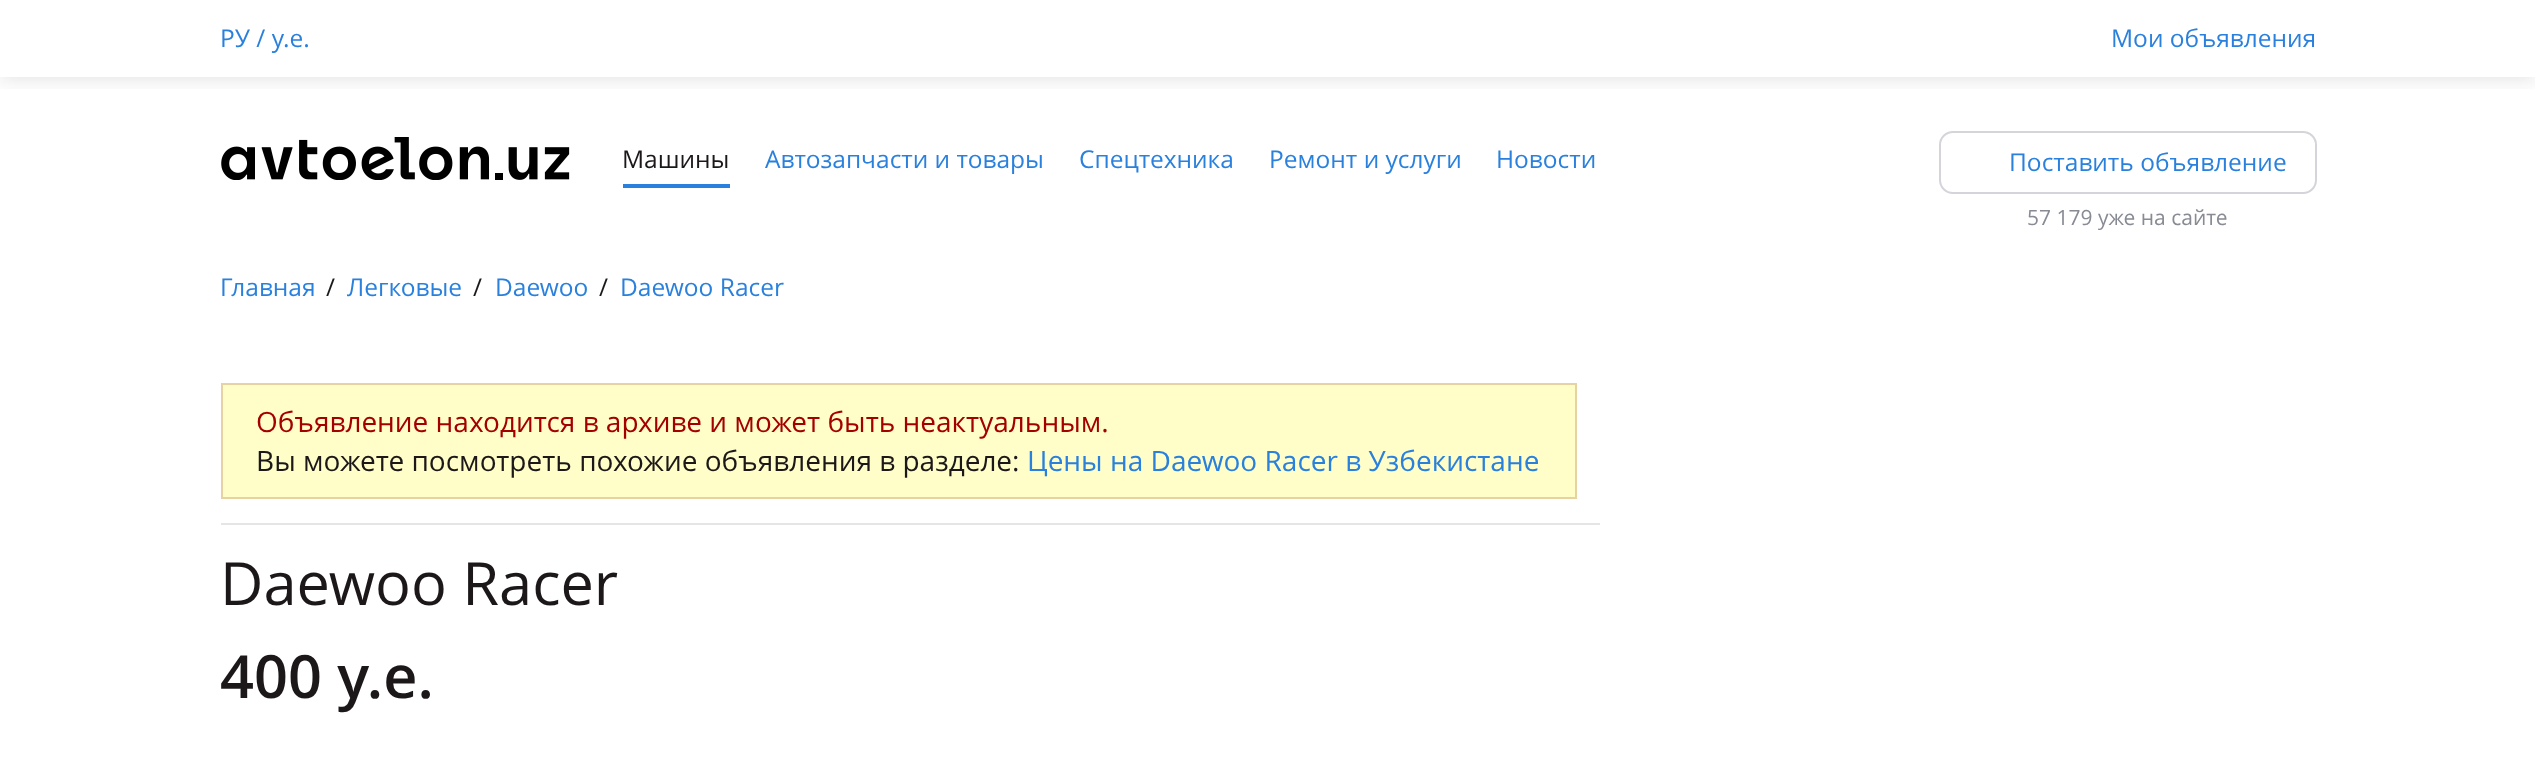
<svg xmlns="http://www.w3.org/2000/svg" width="2535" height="778">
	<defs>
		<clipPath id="clip1"><rect x="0" y="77" width="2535" height="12" /></clipPath>
	</defs>
	<rect width="100%" height="100%" fill="#FFFFFF" />
	<g clip-path="url(#clip1)">
		<rect x="0" y="4" width="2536" height="77" fill="#1C1819" fill-opacity="0.1" filter="blur(9px)" />
	</g>
	<g font-family="Open Sans" font-size="24.5" fill="#2A81DD">
		<text x="220" y="47">РУ / у.е.</text>
		<text x="2111" y="47">Мои объявления</text>
	</g>
	<image x="221" y="137" width="349" height="43" href="assets/img1.png" />
	<rect x="623" y="184" width="107" height="4" fill="#2A81DD" />
	<text x="622" y="168" font-family="Open Sans" font-size="24.5" fill="#1C1819">Машины</text>
	<g font-family="Open Sans" font-size="24.5" fill="#2A81DD">
		<text x="765" y="168">Автозапчасти и товары</text>
		<text x="1079" y="168">Спецтехника</text>
		<text x="1269" y="168">Ремонт и услуги</text>
		<text x="1496" y="168">Новости</text>
	</g>
	<rect x="1940" y="132" width="376" height="61" rx="13" fill="none" stroke="#D4D4DA" stroke-width="2" />
	<text x="2009" y="171" font-family="Open Sans" font-size="24.5" fill="#2A81DD">Поставить объявление</text>
	<text x="2027" y="225" font-family="Open Sans" font-size="21" fill="#888B94">57 179 уже на сайте</text>
	<text x="220" y="296" font-family="Open Sans" font-size="24.5" fill="#2A81DD">Главная</text>
	<text x="326" y="296" font-family="Open Sans" font-size="24.5" fill="#1C1819">/</text>
	<text x="347" y="296" font-family="Open Sans" font-size="24.5" fill="#2A81DD">Легковые</text>
	<text x="473" y="296" font-family="Open Sans" font-size="24.5" fill="#1C1819">/</text>
	<text x="495" y="296" font-family="Open Sans" font-size="24.5" fill="#2A81DD">Daewoo</text>
	<text x="599" y="296" font-family="Open Sans" font-size="24.5" fill="#1C1819">/</text>
	<text x="620" y="296" font-family="Open Sans" font-size="24.5" fill="#2A81DD">Daewoo Racer</text>
	<rect x="222" y="384" width="1354" height="114" fill="#FFFEC9" stroke="#E7D3A2" stroke-width="2" />
	<text x="256" y="432" font-family="Open Sans" font-size="28" fill="#A50000">Объявление находится в архиве и может быть неактуальным.</text>
	<text x="256" y="471" font-family="Open Sans" font-size="28" fill="#1C1819">Вы можете посмотреть похожие объявления в разделе:</text>
	<text x="1027" y="471" font-family="Open Sans" font-size="28" fill="#2A81DD">Цены на Daewoo Racer в Узбекистане</text>
	<rect x="221" y="523" width="1379" height="2" fill="#E5E5E5" />
	<text x="220" y="605" font-family="Open Sans" font-size="59.5" fill="#1C1819">Daewoo Racer</text>
	<text x="220" y="698" font-family="Open Sans" font-size="59.5" font-weight="600" fill="#1C1819">400 y.e.</text>
</svg>
